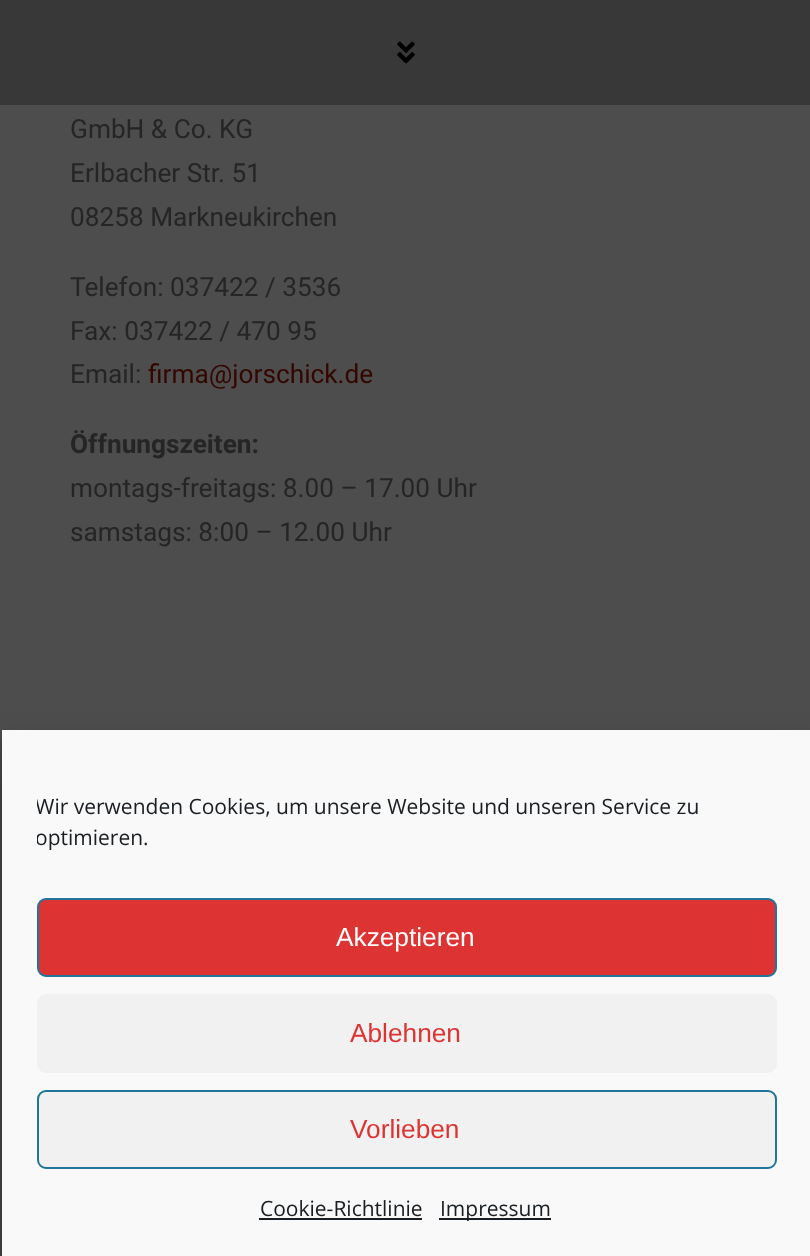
<svg xmlns="http://www.w3.org/2000/svg" width="810" height="1256">
	<defs>
		<clipPath id="clip1"><rect x="37" y="791" width="740" height="72" /></clipPath>
	</defs>
	<rect width="100%" height="100%" fill="#4D4D4D" />
	<rect x="0" y="0" width="810" height="105" fill="#383838" />
	<image x="397" y="41" width="18" height="23" href="assets/img1.png" />
	<g font-family="Roboto" font-size="26.25" fill="#252525">
		<text x="70" y="138">GmbH &amp; Co. KG</text>
		<text x="70" y="182">Erlbacher Str. 51</text>
		<text x="70" y="226">08258 Markneukirchen</text>
		<text x="70" y="296">Telefon: 037422 / 3536</text>
		<text x="70" y="340">Fax: 037422 / 470 95</text>
		<text x="70" y="383">Email:</text>
	</g>
	<text x="148" y="383" font-family="Roboto" font-size="26.25" fill="#330700">firma@jorschick.de</text>
	<text x="70" y="453" font-family="Roboto" font-size="26.25" font-weight="700" fill="#252525">Öffnungszeiten:</text>
	<g font-family="Roboto" font-size="26.25" fill="#252525">
		<text x="70" y="497">montags-freitags: 8.00 – 17.00 Uhr</text>
		<text x="70" y="541">samstags: 8:00 – 12.00 Uhr</text>
	</g>
	<rect x="0" y="777" width="2" height="479" fill="#4A4A4A" />
	<rect x="2" y="740" width="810" height="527" fill="#000000" fill-opacity="0.23" filter="blur(5px)" />
	<rect x="2" y="747" width="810" height="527" fill="#000000" fill-opacity="0.19" filter="blur(17.5px)" />
	<rect x="2" y="730" width="808" height="526" fill="#F9F9F9" />
	<g clip-path="url(#clip1)">
		<g font-family="Open Sans" font-size="21" fill="#191E23">
			<text x="35" y="814">Wir verwenden Cookies, um unsere Website und unseren Service zu</text>
			<text x="35" y="845">optimieren.</text>
		</g>
	</g>
	<rect x="38" y="899" width="738" height="77" rx="8" fill="#DD3333" stroke="#21759B" stroke-width="2" />
	<text x="336" y="946" font-family="Liberation Sans" font-size="26.25" fill="#FFFFFF">Akzeptieren</text>
	<rect x="37" y="994" width="740" height="79" rx="9" fill="#F1F1F1" />
	<text x="350" y="1042" font-family="Liberation Sans" font-size="26.25" fill="#DD3333">Ablehnen</text>
	<rect x="38" y="1091" width="738" height="77" rx="8" fill="#F1F1F1" stroke="#21759B" stroke-width="2" />
	<text x="350" y="1138" font-family="Liberation Sans" font-size="26.25" fill="#DD3333">Vorlieben</text>
	<text x="260" y="1216" font-family="Open Sans" font-size="21" fill="#191E23">Cookie-Richtlinie</text>
	<rect x="259" y="1218" width="163" height="2" fill="#191E23" />
	<rect x="439" y="1218" width="112" height="2" fill="#191E23" />
	<text x="440" y="1216" font-family="Open Sans" font-size="21" fill="#191E23">Impressum</text>
</svg>
